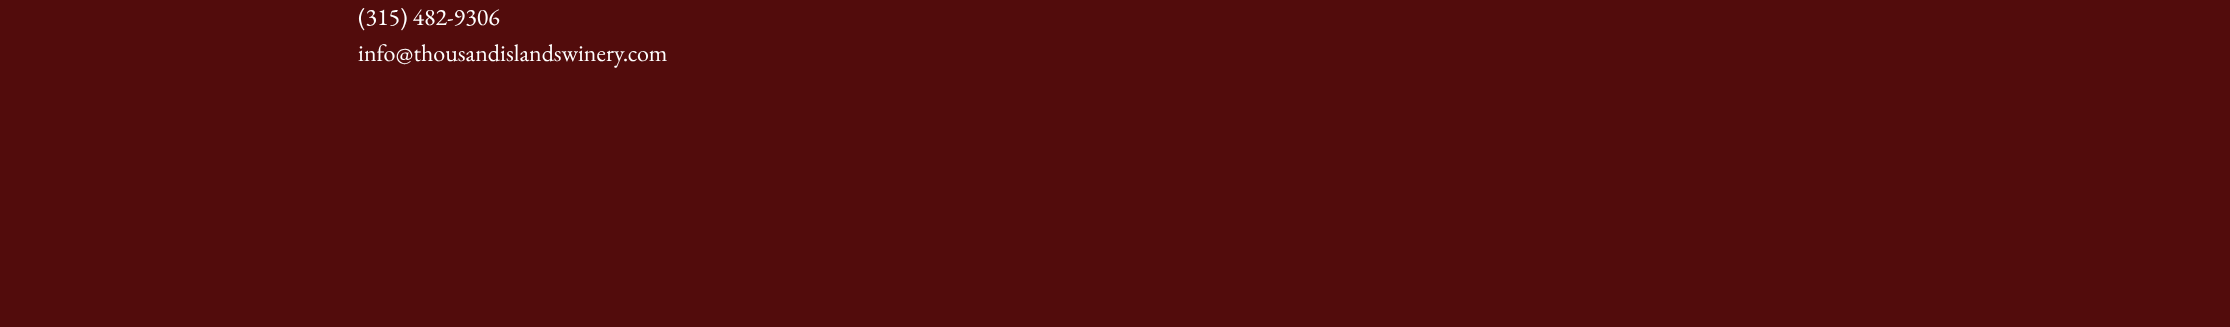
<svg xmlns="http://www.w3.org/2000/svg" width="2230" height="327">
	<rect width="100%" height="100%" fill="#520C0C" />
	<g font-family="EB Garamond" font-size="24" fill="#FFFFFF">
		<text x="358" y="25">(315) 482-9306</text>
		<text x="358" y="61">info@thousandislandswinery.com</text>
	</g>
</svg>
